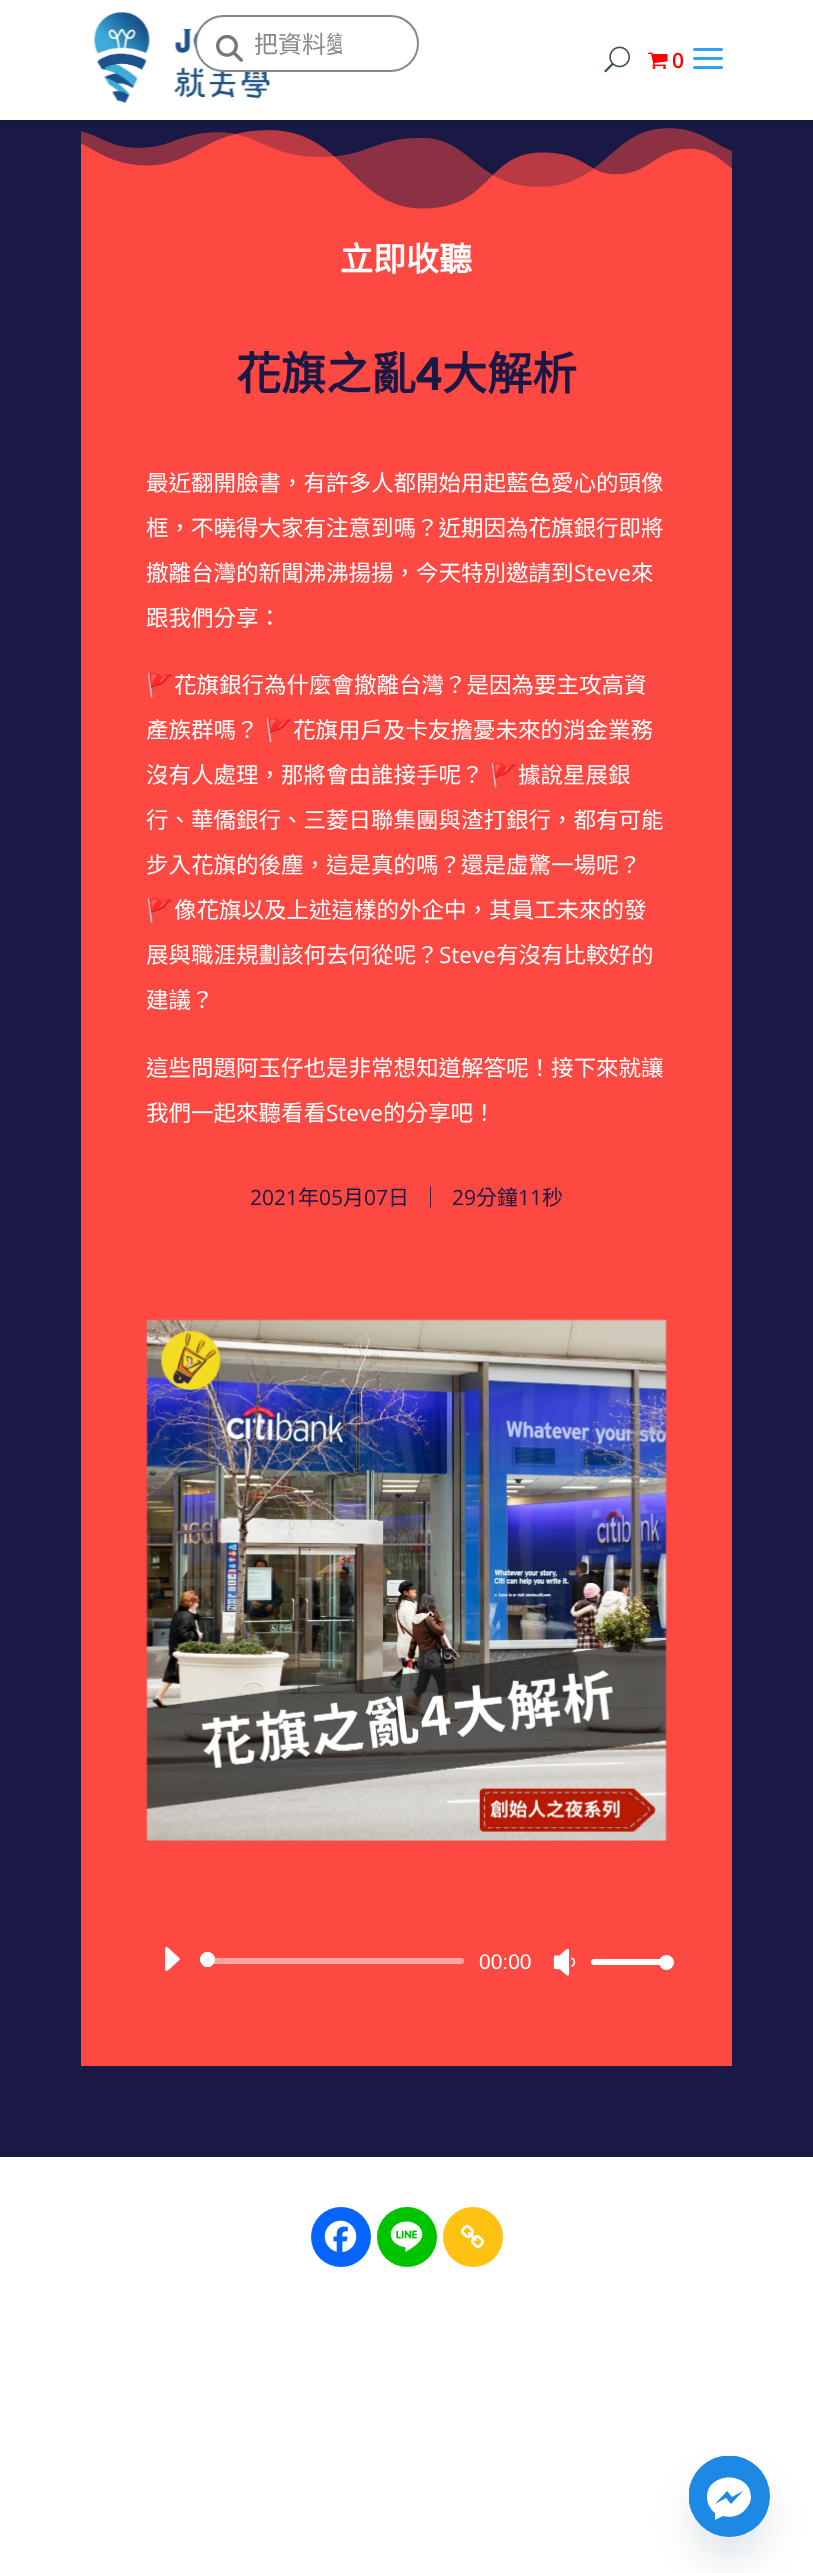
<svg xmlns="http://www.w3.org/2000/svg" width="813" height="2573">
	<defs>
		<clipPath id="clip1"><rect x="254" y="24" width="88" height="36" /></clipPath>
		<clipPath id="clip2"><rect x="689" y="2456" width="81" height="81" /></clipPath>
	</defs>
	<rect width="100%" height="100%" fill="#FFFFFF" />
	<rect x="0" y="120" width="813" height="2" fill="#17163D" />
	<image x="93" y="12" width="208" height="92" href="assets/img1.png" />
	<rect x="196" y="16" width="222" height="55" rx="27.5" fill="#FFFFFF" stroke="#888888" stroke-width="2" />
	<image x="216" y="34" width="27" height="28" href="assets/img2.png" />
	<g clip-path="url(#clip1)">
		<text x="254" y="53" font-family="Noto Sans CJK TC" font-size="24" fill="#888888">把資料變</text>
	</g>
	<image x="604" y="46" width="26" height="27" href="assets/img3.png" />
	<image x="648" y="52" width="20" height="17" href="assets/img4.png" />
	<text x="672" y="68" font-family="Open Sans" font-size="21" font-weight="600" fill="#FF0000">0</text>
	<image x="693" y="48" width="30" height="21" href="assets/img5.png" />
	<rect x="0" y="122" width="813" height="2035" fill="#1A1844" />
	<rect x="81" y="128" width="651" height="1938" fill="#FE4943" />
	<image x="81" y="122" width="651" height="87" href="assets/img6.png" />
	<text x="340" y="271" font-family="Noto Sans CJK TC" font-size="33" font-weight="700" fill="#FFFFFF">立即收聽</text>
	<text x="236" y="390" font-family="Noto Sans CJK TC" font-size="45" font-weight="700" fill="#1A1844">花旗之亂</text>
	<text x="416" y="390" font-family="Lato" font-size="45" font-weight="900" fill="#1A1844">4</text>
	<text x="442" y="390" font-family="Noto Sans CJK TC" font-size="45" font-weight="700" fill="#1A1844">大解析</text>
	<g font-family="Noto Sans CJK TC" font-size="22.5" fill="#FFFFFF">
		<text x="146" y="491">最近翻開臉書，有許多人都開始用起藍色愛心的頭像</text>
		<text x="146" y="536">框，不曉得大家有注意到嗎？近期因為花旗銀行即將</text>
		<text x="146" y="581">撤離台灣的新聞沸沸揚揚，今天特別邀請到</text>
	</g>
	<text x="574" y="581" font-family="Open Sans" font-size="22.5" fill="#FFFFFF">Steve</text>
	<g font-family="Noto Sans CJK TC" font-size="22.5" fill="#FFFFFF">
		<text x="631" y="581">來</text>
		<text x="146" y="626">跟我們分享：</text>
	</g>
	<text x="146" y="693" font-family="Noto Color Emoji" font-size="22.5" fill="#FFFFFF">🚩</text>
	<g font-family="Noto Sans CJK TC" font-size="22.5" fill="#FFFFFF">
		<text x="174" y="693">花旗銀行為什麼會撤離台灣？是因為要主攻高資</text>
		<text x="146" y="738">產族群嗎？</text>
	</g>
	<text x="265" y="738" font-family="Noto Color Emoji" font-size="22.5" fill="#FFFFFF">🚩</text>
	<g font-family="Noto Sans CJK TC" font-size="22.5" fill="#FFFFFF">
		<text x="293" y="738">花旗用戶及卡友擔憂未來的消金業務</text>
		<text x="146" y="783">沒有人處理，那將會由誰接手呢？</text>
	</g>
	<text x="490" y="783" font-family="Noto Color Emoji" font-size="22.5" fill="#FFFFFF">🚩</text>
	<g font-family="Noto Sans CJK TC" font-size="22.5" fill="#FFFFFF">
		<text x="518" y="783">據說星展銀</text>
		<text x="146" y="828">行、華僑銀行、三菱日聯集團與渣打銀行，都有可能</text>
		<text x="146" y="873">步入花旗的後塵，這是真的嗎？還是虛驚一場呢？</text>
	</g>
	<text x="146" y="918" font-family="Noto Color Emoji" font-size="22.5" fill="#FFFFFF">🚩</text>
	<g font-family="Noto Sans CJK TC" font-size="22.5" fill="#FFFFFF">
		<text x="174" y="918">像花旗以及上述這樣的外企中，其員工未來的發</text>
		<text x="146" y="963">展與職涯規劃該何去何從呢？</text>
	</g>
	<text x="439" y="963" font-family="Open Sans" font-size="22.5" fill="#FFFFFF">Steve</text>
	<g font-family="Noto Sans CJK TC" font-size="22.5" fill="#FFFFFF">
		<text x="496" y="963">有沒有比較好的</text>
		<text x="146" y="1008">建議？</text>
		<text x="146" y="1076">這些問題阿玉仔也是非常想知道解答呢！接下來就讓</text>
		<text x="146" y="1121">我們一起來聽看看</text>
	</g>
	<text x="326" y="1121" font-family="Open Sans" font-size="22.5" fill="#FFFFFF">Steve</text>
	<text x="383" y="1121" font-family="Noto Sans CJK TC" font-size="22.5" fill="#FFFFFF">的分享吧！</text>
	<text x="250" y="1205" font-family="Open Sans" font-size="21" fill="#1A1844">2021</text>
	<text x="298" y="1205" font-family="Noto Sans CJK TC" font-size="21" fill="#1A1844">年</text>
	<text x="319" y="1205" font-family="Open Sans" font-size="21" fill="#1A1844">05</text>
	<text x="343" y="1205" font-family="Noto Sans CJK TC" font-size="21" fill="#1A1844">月</text>
	<text x="364" y="1205" font-family="Open Sans" font-size="21" fill="#1A1844">07</text>
	<g font-family="Noto Sans CJK TC" font-size="21" fill="#1A1844">
		<text x="388" y="1205">日</text>
		<text x="420" y="1205">｜</text>
	</g>
	<text x="452" y="1205" font-family="Open Sans" font-size="21" fill="#1A1844">29</text>
	<text x="476" y="1205" font-family="Noto Sans CJK TC" font-size="21" fill="#1A1844">分鐘</text>
	<text x="518" y="1205" font-family="Open Sans" font-size="21" fill="#1A1844">11</text>
	<text x="542" y="1205" font-family="Noto Sans CJK TC" font-size="21" fill="#1A1844">秒</text>
	<image x="146" y="1319" width="521" height="522" href="assets/img7.png" />
	<image x="165" y="1947" width="15" height="24" href="assets/img8.png" />
	<rect x="210" y="1958" width="254" height="6" rx="3" fill="#FFA4A1" />
	<circle cx="207.5" cy="1959.5" r="7.5" fill="#FFFFFF" fill-opacity="0.9" />
	<circle cx="207.5" cy="1959.5" r="4.5" fill="none" stroke="#FFFFFF" stroke-opacity="0.9" stroke-width="6" />
	<text x="479" y="1969" font-family="Liberation Sans" font-size="21" fill="#FFFFFF">00:00</text>
	<image x="553" y="1949" width="23" height="27" href="assets/img9.png" />
	<rect x="591" y="1959" width="75" height="6" rx="3" fill="#FFFFFF" />
	<circle cx="666.5" cy="1962.5" r="7.5" fill="#FFFFFF" />
	<circle cx="341" cy="2237" r="30" fill="#0765FE" />
	<image x="324" y="2220" width="33" height="33" href="assets/img10.png" />
	<circle cx="407" cy="2237" r="30" fill="#00C300" />
	<image x="390" y="2221" width="33" height="31" href="assets/img11.png" />
	<circle cx="473" cy="2237" r="30" fill="#FFC112" />
	<image x="461" y="2225" width="23" height="23" href="assets/img12.png" />
	<rect x="689" y="2480" width="81" height="81" rx="40.5" fill="#49687E" fill-opacity="0.16" filter="blur(18px)" />
	<circle cx="729.5" cy="2496.5" r="40.5" fill="#1E88E5" />
	<g clip-path="url(#clip2)">
		<circle cx="729" cy="2496" r="40.5" fill="#1E88E5" />
	</g>
	<path d="M707 2497C707 2471 751 2471 751 2497C751 2502 748 2507 744 2511C739 2516 730 2518 723 2516L715 2520V2513C710 2509 707 2503 707 2497ZM726 2498L731 2504L743 2491L732 2497L727 2491L715 2504Z" fill="#FFFFFF" fill-rule="evenodd" />
</svg>
